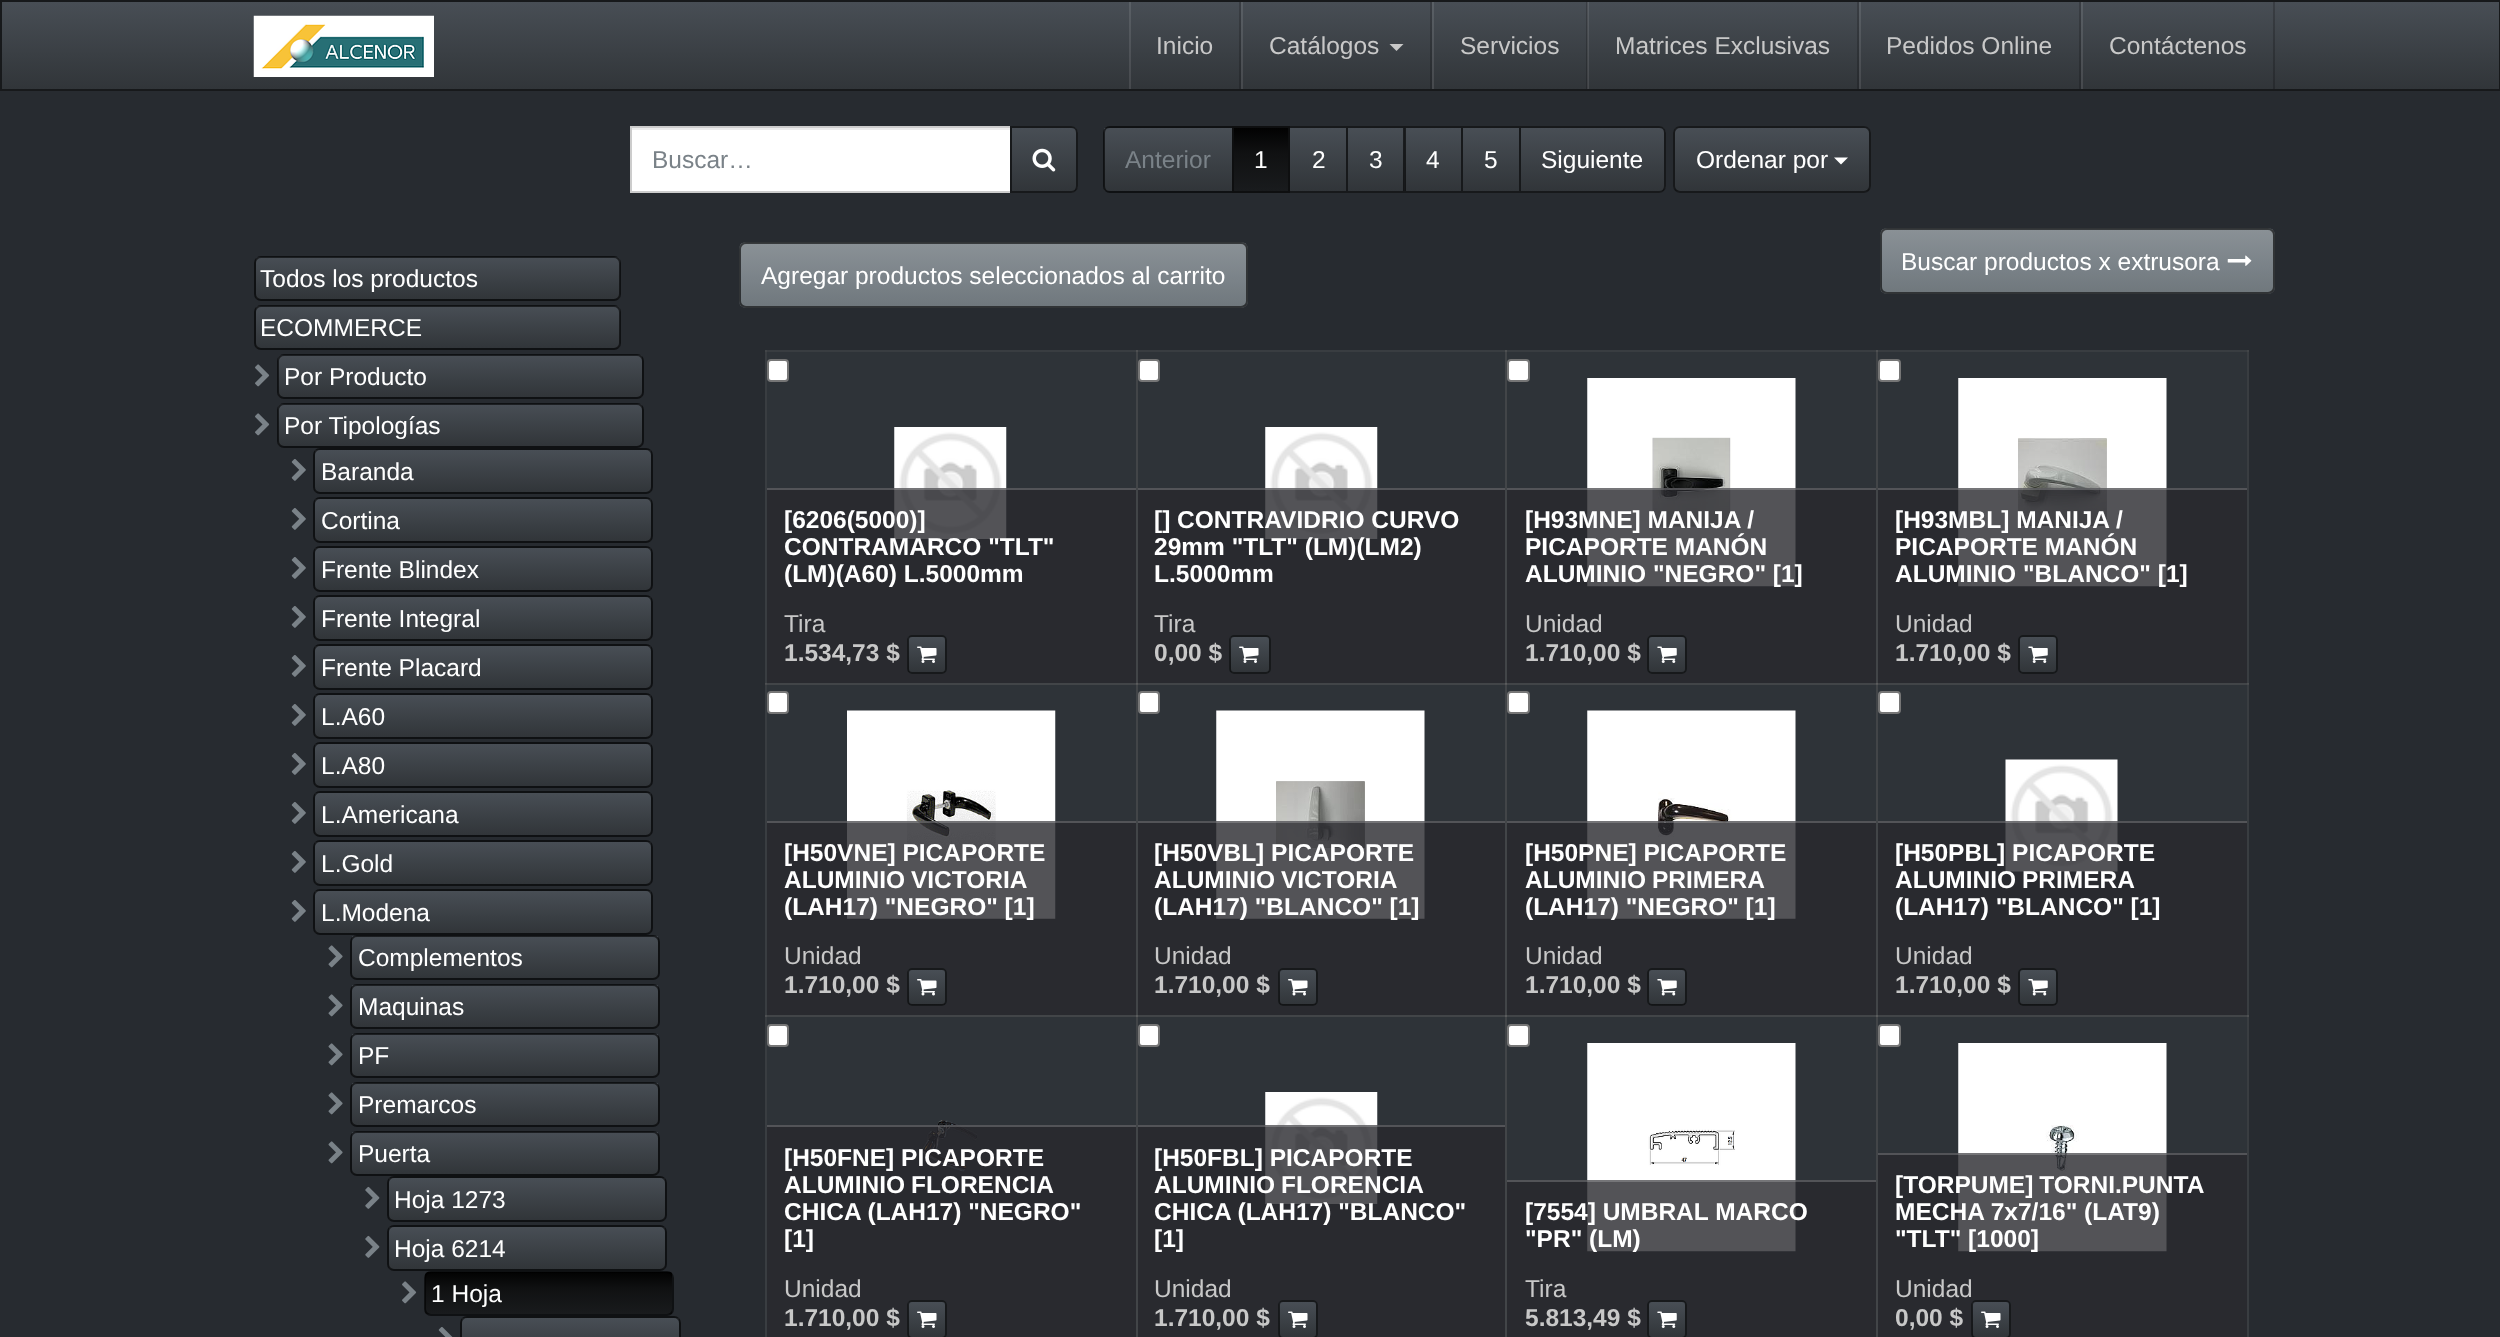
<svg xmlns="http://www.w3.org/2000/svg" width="2500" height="1337">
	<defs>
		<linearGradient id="g1" gradientUnits="userSpaceOnUse" x1="1250" y1="1.7" x2="1250" y2="89"><stop offset="0" stop-color="#484E55" /><stop offset="0.6" stop-color="#3A3F44" /><stop offset="1" stop-color="#313539" /></linearGradient>
		<linearGradient id="g2" gradientUnits="userSpaceOnUse" x1="1250" y1="1.7" x2="1250" y2="89"><stop offset="0" stop-color="#5A6066" /><stop offset="0.6" stop-color="#4E5257" /><stop offset="1" stop-color="#46494D" /></linearGradient>
		<linearGradient id="g3" gradientUnits="userSpaceOnUse" x1="1250" y1="1.7" x2="1250" y2="89"><stop offset="0" stop-color="#3A3E44" /><stop offset="0.6" stop-color="#2E3236" /><stop offset="1" stop-color="#272A2E" /></linearGradient>
		<linearGradient id="g4" gradientUnits="userSpaceOnUse" x1="1250" y1="1.7" x2="1250" y2="89"><stop offset="0" stop-color="#4E5157" /><stop offset="0.6" stop-color="#43474A" /><stop offset="1" stop-color="#3D3F43" /></linearGradient>
		<linearGradient id="g5" gradientUnits="userSpaceOnUse" x1="1044" y1="128" x2="1044" y2="191"><stop offset="0" stop-color="#484E55" /><stop offset="0.6" stop-color="#3A3F44" /><stop offset="1" stop-color="#313539" /></linearGradient>
		<linearGradient id="g6" gradientUnits="userSpaceOnUse" x1="1168" y1="128" x2="1168" y2="191"><stop offset="0" stop-color="#484E55" /><stop offset="0.6" stop-color="#3A3F44" /><stop offset="1" stop-color="#313539" /></linearGradient>
		<linearGradient id="g7" gradientUnits="userSpaceOnUse" x1="1261" y1="128" x2="1261" y2="191"><stop offset="0" stop-color="#020202" /><stop offset="0.4" stop-color="#101112" /><stop offset="1" stop-color="#191B1D" /></linearGradient>
		<linearGradient id="g8" gradientUnits="userSpaceOnUse" x1="1318" y1="128" x2="1318" y2="191"><stop offset="0" stop-color="#484E55" /><stop offset="0.6" stop-color="#3A3F44" /><stop offset="1" stop-color="#313539" /></linearGradient>
		<linearGradient id="g9" gradientUnits="userSpaceOnUse" x1="1376" y1="128" x2="1376" y2="191"><stop offset="0" stop-color="#484E55" /><stop offset="0.6" stop-color="#3A3F44" /><stop offset="1" stop-color="#313539" /></linearGradient>
		<linearGradient id="g10" gradientUnits="userSpaceOnUse" x1="1433" y1="128" x2="1433" y2="191"><stop offset="0" stop-color="#484E55" /><stop offset="0.6" stop-color="#3A3F44" /><stop offset="1" stop-color="#313539" /></linearGradient>
		<linearGradient id="g11" gradientUnits="userSpaceOnUse" x1="1491" y1="128" x2="1491" y2="191"><stop offset="0" stop-color="#484E55" /><stop offset="0.6" stop-color="#3A3F44" /><stop offset="1" stop-color="#313539" /></linearGradient>
		<linearGradient id="g12" gradientUnits="userSpaceOnUse" x1="1593" y1="128" x2="1593" y2="191"><stop offset="0" stop-color="#484E55" /><stop offset="0.6" stop-color="#3A3F44" /><stop offset="1" stop-color="#313539" /></linearGradient>
		<linearGradient id="g13" gradientUnits="userSpaceOnUse" x1="1772" y1="128" x2="1772" y2="191"><stop offset="0" stop-color="#484E55" /><stop offset="0.6" stop-color="#3A3F44" /><stop offset="1" stop-color="#313539" /></linearGradient>
		<clipPath id="clip1"><rect x="254" y="256" width="367" height="45" rx="7" /></clipPath>
		<linearGradient id="g14" gradientUnits="userSpaceOnUse" x1="438" y1="257" x2="438" y2="299"><stop offset="0" stop-color="#484E55" /><stop offset="0.6" stop-color="#3A3F44" /><stop offset="1" stop-color="#313539" /></linearGradient>
		<clipPath id="clip2"><rect x="254" y="305" width="367" height="45" rx="7" /></clipPath>
		<linearGradient id="g15" gradientUnits="userSpaceOnUse" x1="438" y1="306" x2="438" y2="348"><stop offset="0" stop-color="#484E55" /><stop offset="0.6" stop-color="#3A3F44" /><stop offset="1" stop-color="#313539" /></linearGradient>
		<clipPath id="clip3"><rect x="277" y="354" width="367" height="45" rx="7" /></clipPath>
		<linearGradient id="g16" gradientUnits="userSpaceOnUse" x1="460" y1="355" x2="460" y2="397"><stop offset="0" stop-color="#484E55" /><stop offset="0.6" stop-color="#3A3F44" /><stop offset="1" stop-color="#313539" /></linearGradient>
		<clipPath id="clip4"><rect x="277" y="403" width="367" height="45" rx="7" /></clipPath>
		<linearGradient id="g17" gradientUnits="userSpaceOnUse" x1="460" y1="404" x2="460" y2="446"><stop offset="0" stop-color="#484E55" /><stop offset="0.6" stop-color="#3A3F44" /><stop offset="1" stop-color="#313539" /></linearGradient>
		<linearGradient id="g18" gradientUnits="userSpaceOnUse" x1="483" y1="450" x2="483" y2="492"><stop offset="0" stop-color="#484E55" /><stop offset="0.6" stop-color="#3A3F44" /><stop offset="1" stop-color="#313539" /></linearGradient>
		<linearGradient id="g19" gradientUnits="userSpaceOnUse" x1="483" y1="499" x2="483" y2="541"><stop offset="0" stop-color="#484E55" /><stop offset="0.6" stop-color="#3A3F44" /><stop offset="1" stop-color="#313539" /></linearGradient>
		<linearGradient id="g20" gradientUnits="userSpaceOnUse" x1="483" y1="548" x2="483" y2="590"><stop offset="0" stop-color="#484E55" /><stop offset="0.6" stop-color="#3A3F44" /><stop offset="1" stop-color="#313539" /></linearGradient>
		<linearGradient id="g21" gradientUnits="userSpaceOnUse" x1="483" y1="597" x2="483" y2="639"><stop offset="0" stop-color="#484E55" /><stop offset="0.6" stop-color="#3A3F44" /><stop offset="1" stop-color="#313539" /></linearGradient>
		<linearGradient id="g22" gradientUnits="userSpaceOnUse" x1="483" y1="646" x2="483" y2="688"><stop offset="0" stop-color="#484E55" /><stop offset="0.6" stop-color="#3A3F44" /><stop offset="1" stop-color="#313539" /></linearGradient>
		<linearGradient id="g23" gradientUnits="userSpaceOnUse" x1="483" y1="695" x2="483" y2="737"><stop offset="0" stop-color="#484E55" /><stop offset="0.6" stop-color="#3A3F44" /><stop offset="1" stop-color="#313539" /></linearGradient>
		<linearGradient id="g24" gradientUnits="userSpaceOnUse" x1="483" y1="744" x2="483" y2="786"><stop offset="0" stop-color="#484E55" /><stop offset="0.6" stop-color="#3A3F44" /><stop offset="1" stop-color="#313539" /></linearGradient>
		<linearGradient id="g25" gradientUnits="userSpaceOnUse" x1="483" y1="793" x2="483" y2="835"><stop offset="0" stop-color="#484E55" /><stop offset="0.6" stop-color="#3A3F44" /><stop offset="1" stop-color="#313539" /></linearGradient>
		<linearGradient id="g26" gradientUnits="userSpaceOnUse" x1="483" y1="842" x2="483" y2="884"><stop offset="0" stop-color="#484E55" /><stop offset="0.6" stop-color="#3A3F44" /><stop offset="1" stop-color="#313539" /></linearGradient>
		<linearGradient id="g27" gradientUnits="userSpaceOnUse" x1="483" y1="891" x2="483" y2="933"><stop offset="0" stop-color="#484E55" /><stop offset="0.6" stop-color="#3A3F44" /><stop offset="1" stop-color="#313539" /></linearGradient>
		<linearGradient id="g28" gradientUnits="userSpaceOnUse" x1="505" y1="936" x2="505" y2="978"><stop offset="0" stop-color="#484E55" /><stop offset="0.6" stop-color="#3A3F44" /><stop offset="1" stop-color="#313539" /></linearGradient>
		<linearGradient id="g29" gradientUnits="userSpaceOnUse" x1="505" y1="985" x2="505" y2="1027"><stop offset="0" stop-color="#484E55" /><stop offset="0.6" stop-color="#3A3F44" /><stop offset="1" stop-color="#313539" /></linearGradient>
		<linearGradient id="g30" gradientUnits="userSpaceOnUse" x1="505" y1="1034" x2="505" y2="1076"><stop offset="0" stop-color="#484E55" /><stop offset="0.6" stop-color="#3A3F44" /><stop offset="1" stop-color="#313539" /></linearGradient>
		<linearGradient id="g31" gradientUnits="userSpaceOnUse" x1="505" y1="1083" x2="505" y2="1125"><stop offset="0" stop-color="#484E55" /><stop offset="0.6" stop-color="#3A3F44" /><stop offset="1" stop-color="#313539" /></linearGradient>
		<linearGradient id="g32" gradientUnits="userSpaceOnUse" x1="505" y1="1132" x2="505" y2="1174"><stop offset="0" stop-color="#484E55" /><stop offset="0.6" stop-color="#3A3F44" /><stop offset="1" stop-color="#313539" /></linearGradient>
		<linearGradient id="g33" gradientUnits="userSpaceOnUse" x1="527" y1="1178" x2="527" y2="1220"><stop offset="0" stop-color="#484E55" /><stop offset="0.6" stop-color="#3A3F44" /><stop offset="1" stop-color="#313539" /></linearGradient>
		<linearGradient id="g34" gradientUnits="userSpaceOnUse" x1="527" y1="1227" x2="527" y2="1269"><stop offset="0" stop-color="#484E55" /><stop offset="0.6" stop-color="#3A3F44" /><stop offset="1" stop-color="#313539" /></linearGradient>
		<clipPath id="clip5"><rect x="424" y="1271" width="250" height="45" rx="7" /></clipPath>
		<linearGradient id="g35" gradientUnits="userSpaceOnUse" x1="549" y1="1272" x2="549" y2="1314"><stop offset="0" stop-color="#020202" /><stop offset="0.4" stop-color="#101112" /><stop offset="1" stop-color="#191B1D" /></linearGradient>
		<linearGradient id="g36" gradientUnits="userSpaceOnUse" x1="571" y1="1318" x2="571" y2="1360"><stop offset="0" stop-color="#484E55" /><stop offset="0.6" stop-color="#3A3F44" /><stop offset="1" stop-color="#313539" /></linearGradient>
		<clipPath id="clip6"><rect x="739" y="242" width="509" height="66" rx="7" /></clipPath>
		<linearGradient id="g37" gradientUnits="userSpaceOnUse" x1="993" y1="243" x2="993" y2="306"><stop offset="0" stop-color="#8A9196" /><stop offset="0.6" stop-color="#7A8288" /><stop offset="1" stop-color="#70787D" /></linearGradient>
		<clipPath id="clip7"><rect x="1880" y="228" width="395" height="66" rx="7" /></clipPath>
		<linearGradient id="g38" gradientUnits="userSpaceOnUse" x1="2077" y1="229" x2="2077" y2="292"><stop offset="0" stop-color="#8A9196" /><stop offset="0.6" stop-color="#7A8288" /><stop offset="1" stop-color="#70787D" /></linearGradient>
		<linearGradient id="g39" gradientUnits="userSpaceOnUse" x1="927" y1="637" x2="927" y2="672"><stop offset="0" stop-color="#484E55" /><stop offset="0.6" stop-color="#3A3F44" /><stop offset="1" stop-color="#313539" /></linearGradient>
		<linearGradient id="g40" gradientUnits="userSpaceOnUse" x1="1250" y1="637" x2="1250" y2="672"><stop offset="0" stop-color="#484E55" /><stop offset="0.6" stop-color="#3A3F44" /><stop offset="1" stop-color="#313539" /></linearGradient>
		<linearGradient id="g41" gradientUnits="userSpaceOnUse" x1="1667" y1="637" x2="1667" y2="672"><stop offset="0" stop-color="#484E55" /><stop offset="0.6" stop-color="#3A3F44" /><stop offset="1" stop-color="#313539" /></linearGradient>
		<linearGradient id="g42" gradientUnits="userSpaceOnUse" x1="2038" y1="637" x2="2038" y2="672"><stop offset="0" stop-color="#484E55" /><stop offset="0.6" stop-color="#3A3F44" /><stop offset="1" stop-color="#313539" /></linearGradient>
		<linearGradient id="g43" gradientUnits="userSpaceOnUse" x1="927" y1="970" x2="927" y2="1005"><stop offset="0" stop-color="#484E55" /><stop offset="0.6" stop-color="#3A3F44" /><stop offset="1" stop-color="#313539" /></linearGradient>
		<linearGradient id="g44" gradientUnits="userSpaceOnUse" x1="1298" y1="970" x2="1298" y2="1005"><stop offset="0" stop-color="#484E55" /><stop offset="0.6" stop-color="#3A3F44" /><stop offset="1" stop-color="#313539" /></linearGradient>
		<linearGradient id="g45" gradientUnits="userSpaceOnUse" x1="1667" y1="970" x2="1667" y2="1005"><stop offset="0" stop-color="#484E55" /><stop offset="0.6" stop-color="#3A3F44" /><stop offset="1" stop-color="#313539" /></linearGradient>
		<linearGradient id="g46" gradientUnits="userSpaceOnUse" x1="2038" y1="970" x2="2038" y2="1005"><stop offset="0" stop-color="#484E55" /><stop offset="0.6" stop-color="#3A3F44" /><stop offset="1" stop-color="#313539" /></linearGradient>
		<linearGradient id="g47" gradientUnits="userSpaceOnUse" x1="927" y1="1302" x2="927" y2="1337"><stop offset="0" stop-color="#484E55" /><stop offset="0.6" stop-color="#3A3F44" /><stop offset="1" stop-color="#313539" /></linearGradient>
		<linearGradient id="g48" gradientUnits="userSpaceOnUse" x1="1298" y1="1302" x2="1298" y2="1337"><stop offset="0" stop-color="#484E55" /><stop offset="0.6" stop-color="#3A3F44" /><stop offset="1" stop-color="#313539" /></linearGradient>
		<linearGradient id="g49" gradientUnits="userSpaceOnUse" x1="1667" y1="1302" x2="1667" y2="1337"><stop offset="0" stop-color="#484E55" /><stop offset="0.6" stop-color="#3A3F44" /><stop offset="1" stop-color="#313539" /></linearGradient>
		<linearGradient id="g50" gradientUnits="userSpaceOnUse" x1="1991" y1="1302" x2="1991" y2="1337"><stop offset="0" stop-color="#484E55" /><stop offset="0.6" stop-color="#3A3F44" /><stop offset="1" stop-color="#313539" /></linearGradient>
	</defs>
	<rect width="100%" height="100%" fill="#272B30" />
	<rect x="2" y="2" width="2497" height="87" fill="url(#g1)" />
	<rect x="2081" y="2" width="2" height="87" fill="url(#g2)" />
	<rect x="2273" y="2" width="2" height="87" fill="url(#g3)" />
	<rect x="1859" y="2" width="2" height="87" fill="url(#g2)" />
	<rect x="2079" y="2" width="2" height="87" fill="url(#g3)" />
	<rect x="1588" y="2" width="1" height="87" fill="url(#g2)" />
	<rect x="1857" y="2" width="2" height="87" fill="url(#g3)" />
	<rect x="1432" y="2" width="2" height="87" fill="url(#g2)" />
	<rect x="1586" y="2" width="1" height="87" fill="url(#g3)" />
	<rect x="1587" y="2" width="1" height="87" fill="url(#g4)" />
	<rect x="1241" y="2" width="2" height="87" fill="url(#g2)" />
	<rect x="1430" y="2" width="2" height="87" fill="url(#g3)" />
	<rect x="1129" y="2" width="2" height="87" fill="url(#g2)" />
	<rect x="1239" y="2" width="2" height="87" fill="url(#g3)" />
	<rect x="1" y="1" width="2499" height="89" fill="none" stroke="#17191B" stroke-width="2" />
	<image x="253" y="15" width="181" height="62" href="assets/img1.png" />
	<g font-family="Liberation Sans" font-size="24.5" fill="#C8C8C8">
		<text x="1156" y="54">Inicio</text>
		<text x="1269" y="54">Catálogos</text>
	</g>
	<path d="M1389.5 44H1403.5L1396.5 51Z" fill="#C8C8C8" />
	<g font-family="Liberation Sans" font-size="24.5" fill="#C8C8C8">
		<text x="1460" y="54">Servicios</text>
		<text x="1615" y="54">Matrices Exclusivas</text>
		<text x="1886" y="54">Pedidos Online</text>
		<text x="2109" y="54">Contáctenos</text>
	</g>
	<rect x="632" y="130" width="378" height="61" fill="#FFFFFF" />
	<rect x="632" y="128" width="378" height="2" fill="#ECECEC" />
	<rect x="631" y="127" width="380" height="65" fill="none" stroke="#CCCCCC" stroke-width="2" />
	<text x="652" y="168" font-family="Liberation Sans" font-size="24.5" fill="#7A8288">Buscar…</text>
	<path d="M1010 126H1071C1075 126 1078 129 1078 133V186C1078 190 1075 193 1071 193H1010Z" fill="#3A3F44" />
	<rect x="1012" y="128" width="64" height="63" fill="url(#g5)" />
	<path d="M1011 127H1071C1074.5 127 1077 129.5 1077 133V186C1077 189.5 1074.5 192 1071 192H1011Z" fill="none" stroke="#000000" stroke-opacity="0.6" stroke-width="2" />
	<image x="1032" y="148" width="24" height="24" href="assets/img2.png" />
	<rect x="1104" y="128" width="128" height="63" fill="url(#g6)" />
	<path d="M1110 127H1233V192H1110C1106.5 192 1104 189.5 1104 186V133C1104 129.5 1106.5 127 1110 127Z" fill="none" stroke="#000000" stroke-opacity="0.6" stroke-width="2" />
	<text x="1125" y="168" font-family="Liberation Sans" font-size="24.5" fill="#7A8288">Anterior</text>
	<rect x="1234" y="128" width="54" height="63" fill="url(#g7)" />
	<rect x="1290" y="128" width="56" height="63" fill="url(#g8)" />
	<rect x="1289" y="127" width="58" height="65" fill="none" stroke="#17191B" stroke-width="2" />
	<rect x="1233" y="127" width="56" height="65" fill="none" stroke="#0E0F10" stroke-width="2" />
	<g font-family="Liberation Sans" font-size="24.5" fill="#FFFFFF">
		<text x="1254" y="168">1</text>
		<text x="1312" y="168">2</text>
	</g>
	<rect x="1346" y="126" width="58" height="67" fill="#3A3F44" />
	<rect x="1348" y="128" width="56" height="63" fill="url(#g9)" />
	<rect x="1347" y="127" width="57" height="65" fill="none" stroke="#000000" stroke-opacity="0.6" stroke-width="2" />
	<text x="1369" y="168" font-family="Liberation Sans" font-size="24.5" fill="#FFFFFF">3</text>
	<rect x="1404" y="126" width="57" height="67" fill="#3A3F44" />
	<rect x="1405" y="128" width="56" height="63" fill="url(#g10)" />
	<rect x="1405" y="127" width="57" height="65" fill="none" stroke="#000000" stroke-opacity="0.6" stroke-width="2" />
	<text x="1426" y="168" font-family="Liberation Sans" font-size="24.5" fill="#FFFFFF">4</text>
	<rect x="1463" y="128" width="56" height="63" fill="url(#g11)" />
	<rect x="1462" y="127" width="58" height="65" fill="none" stroke="#17191B" stroke-width="2" />
	<text x="1484" y="168" font-family="Liberation Sans" font-size="24.5" fill="#FFFFFF">5</text>
	<path d="M1519 126H1659C1663 126 1666 129 1666 133V186C1666 190 1663 193 1659 193H1519Z" fill="#3A3F44" />
	<rect x="1521" y="128" width="143" height="63" fill="url(#g12)" />
	<path d="M1520 127H1659C1662.5 127 1665 129.5 1665 133V186C1665 189.5 1662.5 192 1659 192H1520Z" fill="none" stroke="#000000" stroke-opacity="0.6" stroke-width="2" />
	<text x="1541" y="168" font-family="Liberation Sans" font-size="24.5" fill="#FFFFFF">Siguiente</text>
	<rect x="1673" y="126" width="198" height="67" rx="7" fill="#3A3F44" />
	<rect x="1675" y="128" width="194" height="63" fill="url(#g13)" />
	<rect x="1674" y="127" width="196" height="65" rx="6" fill="none" stroke="#000000" stroke-opacity="0.6" stroke-width="2" />
	<text x="1696" y="168" font-family="Liberation Sans" font-size="24.5" fill="#FFFFFF">Ordenar por</text>
	<path d="M1834 157.5H1848L1841 164.5Z" fill="#FFFFFF" />
	<g clip-path="url(#clip1)">
		<rect x="256" y="257" width="364" height="42" fill="url(#g14)" />
	</g>
	<rect x="255" y="257" width="365" height="43" rx="6" fill="none" stroke="#000000" stroke-opacity="0.6" stroke-width="2" />
	<text x="260" y="287" font-family="Liberation Sans" font-size="24.5" fill="#FFFFFF">Todos los productos</text>
	<g clip-path="url(#clip2)">
		<rect x="256" y="306" width="364" height="42" fill="url(#g15)" />
	</g>
	<rect x="255" y="306" width="365" height="43" rx="6" fill="none" stroke="#000000" stroke-opacity="0.6" stroke-width="2" />
	<text x="260" y="336" font-family="Liberation Sans" font-size="24.5" fill="#FFFFFF">ECOMMERCE</text>
	<image x="255" y="364" width="15" height="23" href="assets/img3.png" />
	<g clip-path="url(#clip3)">
		<rect x="278" y="355" width="364" height="42" fill="url(#g16)" />
	</g>
	<rect x="278" y="355" width="365" height="43" rx="6" fill="none" stroke="#000000" stroke-opacity="0.6" stroke-width="2" />
	<text x="284" y="385" font-family="Liberation Sans" font-size="24.5" fill="#FFFFFF">Por Producto</text>
	<image x="255" y="413" width="15" height="23" href="assets/img3.png" />
	<g clip-path="url(#clip4)">
		<rect x="278" y="404" width="364" height="42" fill="url(#g17)" />
	</g>
	<rect x="278" y="404" width="365" height="43" rx="6" fill="none" stroke="#000000" stroke-opacity="0.6" stroke-width="2" />
	<text x="284" y="434" font-family="Liberation Sans" font-size="24.5" fill="#FFFFFF">Por Tipologías</text>
	<image x="291" y="459" width="15" height="22" href="assets/img4.png" />
	<rect x="315" y="450" width="336" height="42" fill="url(#g18)" />
	<rect x="314" y="449" width="338" height="44" rx="6" fill="none" stroke="#000000" stroke-opacity="0.6" stroke-width="2" />
	<text x="321" y="480" font-family="Liberation Sans" font-size="24.5" fill="#FFFFFF">Baranda</text>
	<image x="291" y="508" width="15" height="22" href="assets/img4.png" />
	<rect x="315" y="499" width="336" height="42" fill="url(#g19)" />
	<rect x="314" y="498" width="338" height="44" rx="6" fill="none" stroke="#000000" stroke-opacity="0.6" stroke-width="2" />
	<text x="321" y="529" font-family="Liberation Sans" font-size="24.5" fill="#FFFFFF">Cortina</text>
	<image x="291" y="557" width="15" height="22" href="assets/img4.png" />
	<rect x="315" y="548" width="336" height="42" fill="url(#g20)" />
	<rect x="314" y="547" width="338" height="44" rx="6" fill="none" stroke="#000000" stroke-opacity="0.6" stroke-width="2" />
	<text x="321" y="578" font-family="Liberation Sans" font-size="24.5" fill="#FFFFFF">Frente Blindex</text>
	<image x="291" y="606" width="15" height="22" href="assets/img4.png" />
	<rect x="315" y="597" width="336" height="42" fill="url(#g21)" />
	<rect x="314" y="596" width="338" height="44" rx="6" fill="none" stroke="#000000" stroke-opacity="0.6" stroke-width="2" />
	<text x="321" y="627" font-family="Liberation Sans" font-size="24.5" fill="#FFFFFF">Frente Integral</text>
	<image x="291" y="655" width="15" height="22" href="assets/img4.png" />
	<rect x="315" y="646" width="336" height="42" fill="url(#g22)" />
	<rect x="314" y="645" width="338" height="44" rx="6" fill="none" stroke="#000000" stroke-opacity="0.6" stroke-width="2" />
	<text x="321" y="676" font-family="Liberation Sans" font-size="24.5" fill="#FFFFFF">Frente Placard</text>
	<image x="291" y="704" width="15" height="22" href="assets/img4.png" />
	<rect x="315" y="695" width="336" height="42" fill="url(#g23)" />
	<rect x="314" y="694" width="338" height="44" rx="6" fill="none" stroke="#000000" stroke-opacity="0.6" stroke-width="2" />
	<text x="321" y="725" font-family="Liberation Sans" font-size="24.5" fill="#FFFFFF">L.A60</text>
	<image x="291" y="753" width="15" height="22" href="assets/img4.png" />
	<rect x="315" y="744" width="336" height="42" fill="url(#g24)" />
	<rect x="314" y="743" width="338" height="44" rx="6" fill="none" stroke="#000000" stroke-opacity="0.6" stroke-width="2" />
	<text x="321" y="774" font-family="Liberation Sans" font-size="24.5" fill="#FFFFFF">L.A80</text>
	<image x="291" y="802" width="15" height="22" href="assets/img4.png" />
	<rect x="315" y="793" width="336" height="42" fill="url(#g25)" />
	<rect x="314" y="792" width="338" height="44" rx="6" fill="none" stroke="#000000" stroke-opacity="0.6" stroke-width="2" />
	<text x="321" y="823" font-family="Liberation Sans" font-size="24.5" fill="#FFFFFF">L.Americana</text>
	<image x="291" y="851" width="15" height="22" href="assets/img4.png" />
	<rect x="315" y="842" width="336" height="42" fill="url(#g26)" />
	<rect x="314" y="841" width="338" height="44" rx="6" fill="none" stroke="#000000" stroke-opacity="0.6" stroke-width="2" />
	<text x="321" y="872" font-family="Liberation Sans" font-size="24.5" fill="#FFFFFF">L.Gold</text>
	<image x="291" y="900" width="15" height="22" href="assets/img4.png" />
	<rect x="315" y="891" width="336" height="42" fill="url(#g27)" />
	<rect x="314" y="890" width="338" height="44" rx="6" fill="none" stroke="#000000" stroke-opacity="0.6" stroke-width="2" />
	<text x="321" y="921" font-family="Liberation Sans" font-size="24.5" fill="#FFFFFF">L.Modena</text>
	<image x="328" y="945" width="15" height="23" href="assets/img5.png" />
	<rect x="352" y="936" width="306" height="42" fill="url(#g28)" />
	<rect x="351" y="936" width="308" height="43" rx="6" fill="none" stroke="#000000" stroke-opacity="0.6" stroke-width="2" />
	<text x="358" y="966" font-family="Liberation Sans" font-size="24.5" fill="#FFFFFF">Complementos</text>
	<image x="328" y="994" width="15" height="23" href="assets/img5.png" />
	<rect x="352" y="985" width="306" height="42" fill="url(#g29)" />
	<rect x="351" y="985" width="308" height="43" rx="6" fill="none" stroke="#000000" stroke-opacity="0.6" stroke-width="2" />
	<text x="358" y="1015" font-family="Liberation Sans" font-size="24.5" fill="#FFFFFF">Maquinas</text>
	<image x="328" y="1043" width="15" height="23" href="assets/img5.png" />
	<rect x="352" y="1034" width="306" height="42" fill="url(#g30)" />
	<rect x="351" y="1034" width="308" height="43" rx="6" fill="none" stroke="#000000" stroke-opacity="0.6" stroke-width="2" />
	<text x="358" y="1064" font-family="Liberation Sans" font-size="24.5" fill="#FFFFFF">PF</text>
	<image x="328" y="1092" width="15" height="23" href="assets/img5.png" />
	<rect x="352" y="1083" width="306" height="42" fill="url(#g31)" />
	<rect x="351" y="1083" width="308" height="43" rx="6" fill="none" stroke="#000000" stroke-opacity="0.6" stroke-width="2" />
	<text x="358" y="1113" font-family="Liberation Sans" font-size="24.5" fill="#FFFFFF">Premarcos</text>
	<image x="328" y="1141" width="15" height="23" href="assets/img5.png" />
	<rect x="352" y="1132" width="306" height="42" fill="url(#g32)" />
	<rect x="351" y="1132" width="308" height="43" rx="6" fill="none" stroke="#000000" stroke-opacity="0.6" stroke-width="2" />
	<text x="358" y="1162" font-family="Liberation Sans" font-size="24.5" fill="#FFFFFF">Puerta</text>
	<image x="365" y="1186" width="15" height="23" href="assets/img6.png" />
	<rect x="389" y="1178" width="276" height="42" fill="url(#g33)" />
	<rect x="388" y="1177" width="278" height="44" rx="6" fill="none" stroke="#000000" stroke-opacity="0.6" stroke-width="2" />
	<text x="394" y="1208" font-family="Liberation Sans" font-size="24.5" fill="#FFFFFF">Hoja 1273</text>
	<image x="365" y="1235" width="15" height="23" href="assets/img6.png" />
	<rect x="389" y="1227" width="276" height="42" fill="url(#g34)" />
	<rect x="388" y="1226" width="278" height="44" rx="6" fill="none" stroke="#000000" stroke-opacity="0.6" stroke-width="2" />
	<text x="394" y="1257" font-family="Liberation Sans" font-size="24.5" fill="#FFFFFF">Hoja 6214</text>
	<image x="402" y="1281" width="15" height="23" href="assets/img3.png" />
	<g clip-path="url(#clip5)">
		<rect x="425" y="1272" width="247" height="42" fill="url(#g35)" />
	</g>
	<rect x="425" y="1272" width="248" height="43" rx="6" fill="none" stroke="#000000" stroke-opacity="0.6" stroke-width="2" />
	<text x="431" y="1302" font-family="Liberation Sans" font-size="24.5" fill="#FFFFFF">1 Hoja</text>
	<image x="438" y="1327" width="15" height="10" href="assets/img7.png" />
	<rect x="462" y="1318" width="217" height="19" fill="url(#g36)" />
	<rect x="461" y="1317" width="219" height="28" rx="6" fill="none" stroke="#000000" stroke-opacity="0.6" stroke-width="2" />
	<rect x="739" y="242" width="509" height="66" rx="7" fill="#7A8288" />
	<g clip-path="url(#clip6)">
		<rect x="740" y="243" width="506" height="63" fill="url(#g37)" />
	</g>
	<rect x="740" y="243" width="507" height="64" rx="6" fill="none" stroke="#000000" stroke-opacity="0.6" stroke-width="2" />
	<text x="761" y="284" font-family="Liberation Sans" font-size="24.5" fill="#FFFFFF">Agregar productos seleccionados al carrito</text>
	<rect x="1880" y="228" width="395" height="66" rx="7" fill="#7A8288" />
	<g clip-path="url(#clip7)">
		<rect x="1881" y="229" width="392" height="63" fill="url(#g38)" />
	</g>
	<rect x="1881" y="229" width="393" height="64" rx="6" fill="none" stroke="#000000" stroke-opacity="0.6" stroke-width="2" />
	<text x="1901" y="270" font-family="Liberation Sans" font-size="24.5" fill="#FFFFFF">Buscar productos x extrusora</text>
	<image x="2227" y="255" width="25" height="11" href="assets/img8.png" />
	<rect x="767" y="352" width="1480" height="985" fill="#2E3338" />
	<rect x="767" y="1125" width="369" height="212" fill="#292A2F" />
	<rect x="765" y="350" width="2" height="987" fill="#393D41" />
	<rect x="765" y="350" width="373" height="2" fill="#393D41" />
	<rect x="765" y="350" width="2" height="2" fill="#424548" />
	<rect x="1136" y="350" width="2" height="334" fill="#424548" />
	<rect x="1136" y="350" width="371" height="2" fill="#393D41" />
	<rect x="1136" y="350" width="2" height="2" fill="#4E5052" />
	<rect x="1505" y="350" width="2" height="334" fill="#424548" />
	<rect x="1505" y="350" width="373" height="2" fill="#393D41" />
	<rect x="1505" y="350" width="2" height="2" fill="#4E5052" />
	<rect x="1876" y="350" width="2" height="334" fill="#424548" />
	<rect x="2247" y="350" width="2" height="987" fill="#393D41" />
	<rect x="765" y="683" width="373" height="2" fill="#424548" />
	<rect x="765" y="684" width="2" height="1" fill="#494B4E" />
	<rect x="765" y="683" width="2" height="1" fill="#4E5052" />
	<rect x="1136" y="683" width="2" height="334" fill="#424548" />
	<rect x="1136" y="683" width="371" height="2" fill="#424548" />
	<rect x="1136" y="684" width="2" height="1" fill="#565759" />
	<rect x="1136" y="683" width="2" height="1" fill="#5B5C5D" />
	<rect x="1505" y="683" width="2" height="334" fill="#424548" />
	<rect x="1505" y="683" width="373" height="2" fill="#424548" />
	<rect x="1505" y="684" width="2" height="1" fill="#565759" />
	<rect x="1505" y="683" width="2" height="1" fill="#5B5C5D" />
	<rect x="1876" y="683" width="2" height="334" fill="#424548" />
	<rect x="765" y="1015" width="373" height="2" fill="#424548" />
	<rect x="765" y="1015" width="2" height="2" fill="#4E5052" />
	<rect x="1136" y="1015" width="2" height="322" fill="#424548" />
	<rect x="1136" y="1015" width="371" height="2" fill="#424548" />
	<rect x="1136" y="1015" width="2" height="2" fill="#5B5C5D" />
	<rect x="1505" y="1015" width="2" height="322" fill="#424548" />
	<rect x="1505" y="1015" width="373" height="2" fill="#424548" />
	<rect x="1505" y="1015" width="2" height="2" fill="#5B5C5D" />
	<rect x="1876" y="1015" width="2" height="322" fill="#424548" />
	<rect x="768" y="360" width="20" height="21" rx="3" fill="#FFFFFF" stroke="#767676" stroke-width="2" />
	<image x="894" y="427" width="113" height="112" href="assets/img9.png" />
	<rect x="767" y="488" width="369" height="195" fill="#28282D" fill-opacity="0.8" />
	<rect x="767" y="488" width="369" height="2" fill="#FFFFFF" fill-opacity="0.2" />
	<g font-family="Liberation Sans" font-size="24.5" font-weight="700" fill="#FFFFFF">
		<text x="784" y="528">[6206(5000)]</text>
		<text x="784" y="555">CONTRAMARCO "TLT"</text>
		<text x="784" y="582">(LM)(A60) L.5000mm</text>
	</g>
	<text x="784" y="632" font-family="Liberation Sans" font-size="24.5" fill="#C8C8C8">Tira</text>
	<text x="784" y="661" font-family="Liberation Sans" font-size="24.5" font-weight="700" fill="#C8C8C8">1.534,73 $</text>
	<rect x="907" y="635" width="40" height="39" rx="5" fill="#3A3F44" />
	<rect x="908" y="637" width="37" height="35" fill="url(#g39)" />
	<rect x="908" y="636" width="38" height="37" rx="4" fill="none" stroke="#000000" stroke-opacity="0.6" stroke-width="2" />
	<image x="917" y="646" width="20" height="17" href="assets/img10.png" />
	<rect x="1139" y="360" width="20" height="21" rx="3" fill="#FFFFFF" stroke="#767676" stroke-width="2" />
	<image x="1265" y="427" width="113" height="112" href="assets/img9.png" />
	<rect x="1138" y="488" width="367" height="195" fill="#28282D" fill-opacity="0.8" />
	<rect x="1138" y="488" width="367" height="2" fill="#FFFFFF" fill-opacity="0.2" />
	<g font-family="Liberation Sans" font-size="24.5" font-weight="700" fill="#FFFFFF">
		<text x="1154" y="528">[] CONTRAVIDRIO CURVO</text>
		<text x="1154" y="555">29mm "TLT" (LM)(LM2)</text>
		<text x="1154" y="582">L.5000mm</text>
	</g>
	<text x="1154" y="632" font-family="Liberation Sans" font-size="24.5" fill="#C8C8C8">Tira</text>
	<text x="1154" y="661" font-family="Liberation Sans" font-size="24.5" font-weight="700" fill="#C8C8C8">0,00 $</text>
	<rect x="1229" y="635" width="42" height="39" rx="5" fill="#3A3F44" />
	<rect x="1230" y="637" width="39" height="35" fill="url(#g40)" />
	<rect x="1230" y="636" width="40" height="37" rx="4" fill="none" stroke="#000000" stroke-opacity="0.6" stroke-width="2" />
	<image x="1239" y="646" width="20" height="17" href="assets/img10.png" />
	<rect x="1508" y="360" width="21" height="21" rx="3" fill="#FFFFFF" stroke="#767676" stroke-width="2" />
	<image x="1587" y="378" width="209" height="209" href="assets/img11.png" />
	<rect x="1507" y="488" width="369" height="195" fill="#28282D" fill-opacity="0.8" />
	<rect x="1507" y="488" width="369" height="2" fill="#FFFFFF" fill-opacity="0.2" />
	<g font-family="Liberation Sans" font-size="24.5" font-weight="700" fill="#FFFFFF">
		<text x="1525" y="528">[H93MNE] MANIJA /</text>
		<text x="1525" y="555">PICAPORTE MANÓN</text>
		<text x="1525" y="582">ALUMINIO "NEGRO" [1]</text>
	</g>
	<text x="1525" y="632" font-family="Liberation Sans" font-size="24.5" fill="#C8C8C8">Unidad</text>
	<text x="1525" y="661" font-family="Liberation Sans" font-size="24.5" font-weight="700" fill="#C8C8C8">1.710,00 $</text>
	<rect x="1647" y="635" width="40" height="39" rx="5" fill="#3A3F44" />
	<rect x="1649" y="637" width="36" height="35" fill="url(#g41)" />
	<rect x="1648" y="636" width="38" height="37" rx="4" fill="none" stroke="#000000" stroke-opacity="0.6" stroke-width="2" />
	<image x="1657" y="646" width="20" height="17" href="assets/img12.png" />
	<rect x="1876" y="350" width="373" height="2" fill="#393D41" />
	<rect x="1876" y="350" width="2" height="2" fill="#4E5052" />
	<rect x="2247" y="350" width="2" height="2" fill="#424548" />
	<rect x="1879" y="360" width="21" height="21" rx="3" fill="#FFFFFF" stroke="#767676" stroke-width="2" />
	<image x="1958" y="378" width="209" height="209" href="assets/img13.png" />
	<rect x="1878" y="488" width="369" height="195" fill="#28282D" fill-opacity="0.8" />
	<rect x="1878" y="488" width="369" height="2" fill="#FFFFFF" fill-opacity="0.2" />
	<g font-family="Liberation Sans" font-size="24.5" font-weight="700" fill="#FFFFFF">
		<text x="1895" y="528">[H93MBL] MANIJA /</text>
		<text x="1895" y="555">PICAPORTE MANÓN</text>
		<text x="1895" y="582">ALUMINIO "BLANCO" [1]</text>
	</g>
	<text x="1895" y="632" font-family="Liberation Sans" font-size="24.5" fill="#C8C8C8">Unidad</text>
	<text x="1895" y="661" font-family="Liberation Sans" font-size="24.5" font-weight="700" fill="#C8C8C8">1.710,00 $</text>
	<rect x="2018" y="635" width="40" height="39" rx="5" fill="#3A3F44" />
	<rect x="2020" y="637" width="36" height="35" fill="url(#g42)" />
	<rect x="2019" y="636" width="38" height="37" rx="4" fill="none" stroke="#000000" stroke-opacity="0.6" stroke-width="2" />
	<image x="2028" y="646" width="20" height="17" href="assets/img14.png" />
	<rect x="768" y="692" width="20" height="21" rx="3" fill="#FFFFFF" stroke="#767676" stroke-width="2" />
	<image x="847" y="710" width="209" height="209" href="assets/img15.png" />
	<rect x="767" y="821" width="369" height="194" fill="#28282D" fill-opacity="0.8" />
	<rect x="767" y="821" width="369" height="2" fill="#FFFFFF" fill-opacity="0.2" />
	<g font-family="Liberation Sans" font-size="24.5" font-weight="700" fill="#FFFFFF">
		<text x="784" y="861">[H50VNE] PICAPORTE</text>
		<text x="784" y="888" word-spacing="-1">ALUMINIO VICTORIA</text>
		<text x="784" y="915">(LAH17) "NEGRO" [1]</text>
	</g>
	<text x="784" y="964" font-family="Liberation Sans" font-size="24.5" fill="#C8C8C8">Unidad</text>
	<text x="784" y="993" font-family="Liberation Sans" font-size="24.5" font-weight="700" fill="#C8C8C8">1.710,00 $</text>
	<rect x="907" y="968" width="40" height="38" rx="5" fill="#3A3F44" />
	<rect x="908" y="970" width="37" height="35" fill="url(#g43)" />
	<rect x="908" y="969" width="38" height="36" rx="4" fill="none" stroke="#000000" stroke-opacity="0.6" stroke-width="2" />
	<image x="917" y="979" width="20" height="17" href="assets/img16.png" />
	<rect x="1139" y="692" width="20" height="21" rx="3" fill="#FFFFFF" stroke="#767676" stroke-width="2" />
	<image x="1216" y="710" width="209" height="209" href="assets/img17.png" />
	<rect x="1138" y="821" width="367" height="194" fill="#28282D" fill-opacity="0.8" />
	<rect x="1138" y="821" width="367" height="2" fill="#FFFFFF" fill-opacity="0.2" />
	<g font-family="Liberation Sans" font-size="24.5" font-weight="700" fill="#FFFFFF">
		<text x="1154" y="861">[H50VBL] PICAPORTE</text>
		<text x="1154" y="888" word-spacing="-1">ALUMINIO VICTORIA</text>
		<text x="1154" y="915">(LAH17) "BLANCO" [1]</text>
	</g>
	<text x="1154" y="964" font-family="Liberation Sans" font-size="24.5" fill="#C8C8C8">Unidad</text>
	<text x="1154" y="993" font-family="Liberation Sans" font-size="24.5" font-weight="700" fill="#C8C8C8">1.710,00 $</text>
	<rect x="1278" y="968" width="40" height="38" rx="5" fill="#3A3F44" />
	<rect x="1279" y="970" width="37" height="35" fill="url(#g44)" />
	<rect x="1279" y="969" width="38" height="36" rx="4" fill="none" stroke="#000000" stroke-opacity="0.6" stroke-width="2" />
	<image x="1288" y="979" width="20" height="17" href="assets/img16.png" />
	<rect x="1508" y="692" width="21" height="21" rx="3" fill="#FFFFFF" stroke="#767676" stroke-width="2" />
	<image x="1587" y="710" width="209" height="209" href="assets/img18.png" />
	<rect x="1507" y="821" width="369" height="194" fill="#28282D" fill-opacity="0.8" />
	<rect x="1507" y="821" width="369" height="2" fill="#FFFFFF" fill-opacity="0.2" />
	<g font-family="Liberation Sans" font-size="24.5" font-weight="700" fill="#FFFFFF">
		<text x="1525" y="861">[H50PNE] PICAPORTE</text>
		<text x="1525" y="888" word-spacing="-1">ALUMINIO PRIMERA</text>
		<text x="1525" y="915">(LAH17) "NEGRO" [1]</text>
	</g>
	<text x="1525" y="964" font-family="Liberation Sans" font-size="24.5" fill="#C8C8C8">Unidad</text>
	<text x="1525" y="993" font-family="Liberation Sans" font-size="24.5" font-weight="700" fill="#C8C8C8">1.710,00 $</text>
	<rect x="1647" y="968" width="40" height="38" rx="5" fill="#3A3F44" />
	<rect x="1649" y="970" width="36" height="35" fill="url(#g45)" />
	<rect x="1648" y="969" width="38" height="36" rx="4" fill="none" stroke="#000000" stroke-opacity="0.6" stroke-width="2" />
	<image x="1657" y="979" width="20" height="17" href="assets/img19.png" />
	<rect x="1876" y="683" width="373" height="2" fill="#424548" />
	<rect x="1876" y="684" width="2" height="1" fill="#565759" />
	<rect x="1876" y="683" width="2" height="1" fill="#5B5C5D" />
	<rect x="2247" y="684" width="2" height="1" fill="#494B4E" />
	<rect x="2247" y="683" width="2" height="1" fill="#4E5052" />
	<rect x="1879" y="692" width="21" height="21" rx="3" fill="#FFFFFF" stroke="#767676" stroke-width="2" />
	<image x="2005" y="759" width="113" height="113" href="assets/img20.png" />
	<rect x="1878" y="821" width="369" height="194" fill="#28282D" fill-opacity="0.8" />
	<rect x="1878" y="821" width="369" height="2" fill="#FFFFFF" fill-opacity="0.2" />
	<g font-family="Liberation Sans" font-size="24.5" font-weight="700" fill="#FFFFFF">
		<text x="1895" y="861">[H50PBL] PICAPORTE</text>
		<text x="1895" y="888" word-spacing="-1">ALUMINIO PRIMERA</text>
		<text x="1895" y="915">(LAH17) "BLANCO" [1]</text>
	</g>
	<text x="1895" y="964" font-family="Liberation Sans" font-size="24.5" fill="#C8C8C8">Unidad</text>
	<text x="1895" y="993" font-family="Liberation Sans" font-size="24.5" font-weight="700" fill="#C8C8C8">1.710,00 $</text>
	<rect x="2018" y="968" width="40" height="38" rx="5" fill="#3A3F44" />
	<rect x="2020" y="970" width="36" height="35" fill="url(#g46)" />
	<rect x="2019" y="969" width="38" height="36" rx="4" fill="none" stroke="#000000" stroke-opacity="0.6" stroke-width="2" />
	<image x="2028" y="979" width="20" height="17" href="assets/img21.png" />
	<rect x="768" y="1025" width="20" height="21" rx="3" fill="#FFFFFF" stroke="#767676" stroke-width="2" />
	<image x="922" y="1120" width="56" height="52" href="assets/img22.png" />
	<rect x="767" y="1125" width="369" height="2" fill="#FFFFFF" fill-opacity="0.2" />
	<g font-family="Liberation Sans" font-size="24.5" font-weight="700" fill="#FFFFFF">
		<text x="784" y="1166">[H50FNE] PICAPORTE</text>
		<text x="784" y="1193" word-spacing="-1">ALUMINIO FLORENCIA</text>
		<text x="784" y="1220">CHICA (LAH17) "NEGRO"</text>
		<text x="784" y="1247">[1]</text>
	</g>
	<text x="784" y="1297" font-family="Liberation Sans" font-size="24.5" fill="#C8C8C8">Unidad</text>
	<text x="784" y="1326" font-family="Liberation Sans" font-size="24.5" font-weight="700" fill="#C8C8C8">1.710,00 $</text>
	<rect x="907" y="1300" width="40" height="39" rx="5" fill="#3A3F44" />
	<rect x="908" y="1302" width="37" height="35" fill="url(#g47)" />
	<rect x="908" y="1301" width="38" height="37" rx="4" fill="none" stroke="#000000" stroke-opacity="0.6" stroke-width="2" />
	<image x="917" y="1311" width="20" height="17" href="assets/img10.png" />
	<rect x="1139" y="1025" width="20" height="21" rx="3" fill="#FFFFFF" stroke="#767676" stroke-width="2" />
	<image x="1265" y="1092" width="113" height="112" href="assets/img9.png" />
	<rect x="1138" y="1125" width="367" height="212" fill="#28282D" fill-opacity="0.8" />
	<rect x="1138" y="1125" width="367" height="2" fill="#FFFFFF" fill-opacity="0.2" />
	<g font-family="Liberation Sans" font-size="24.5" font-weight="700" fill="#FFFFFF">
		<text x="1154" y="1166">[H50FBL] PICAPORTE</text>
		<text x="1154" y="1193" word-spacing="-1">ALUMINIO FLORENCIA</text>
		<text x="1154" y="1220">CHICA (LAH17) "BLANCO"</text>
		<text x="1154" y="1247">[1]</text>
	</g>
	<text x="1154" y="1297" font-family="Liberation Sans" font-size="24.5" fill="#C8C8C8">Unidad</text>
	<text x="1154" y="1326" font-family="Liberation Sans" font-size="24.5" font-weight="700" fill="#C8C8C8">1.710,00 $</text>
	<rect x="1278" y="1300" width="40" height="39" rx="5" fill="#3A3F44" />
	<rect x="1279" y="1302" width="37" height="35" fill="url(#g48)" />
	<rect x="1279" y="1301" width="38" height="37" rx="4" fill="none" stroke="#000000" stroke-opacity="0.6" stroke-width="2" />
	<image x="1288" y="1311" width="20" height="17" href="assets/img10.png" />
	<rect x="1508" y="1025" width="21" height="21" rx="3" fill="#FFFFFF" stroke="#767676" stroke-width="2" />
	<image x="1587" y="1043" width="209" height="209" href="assets/img23.png" />
	<rect x="1507" y="1180" width="369" height="157" fill="#28282D" fill-opacity="0.8" />
	<rect x="1507" y="1180" width="369" height="2" fill="#FFFFFF" fill-opacity="0.2" />
	<g font-family="Liberation Sans" font-size="24.5" font-weight="700" fill="#FFFFFF">
		<text x="1525" y="1220">[7554] UMBRAL MARCO</text>
		<text x="1525" y="1247">"PR" (LM)</text>
	</g>
	<text x="1525" y="1297" font-family="Liberation Sans" font-size="24.5" fill="#C8C8C8">Tira</text>
	<text x="1525" y="1326" font-family="Liberation Sans" font-size="24.5" font-weight="700" fill="#C8C8C8">5.813,49 $</text>
	<rect x="1647" y="1300" width="40" height="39" rx="5" fill="#3A3F44" />
	<rect x="1649" y="1302" width="36" height="35" fill="url(#g49)" />
	<rect x="1648" y="1301" width="38" height="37" rx="4" fill="none" stroke="#000000" stroke-opacity="0.6" stroke-width="2" />
	<image x="1657" y="1311" width="20" height="17" href="assets/img12.png" />
	<rect x="1876" y="1015" width="373" height="2" fill="#424548" />
	<rect x="1876" y="1015" width="2" height="2" fill="#5B5C5D" />
	<rect x="2247" y="1015" width="2" height="2" fill="#4E5052" />
	<rect x="1879" y="1025" width="21" height="21" rx="3" fill="#FFFFFF" stroke="#767676" stroke-width="2" />
	<image x="1958" y="1043" width="209" height="209" href="assets/img24.png" />
	<rect x="1878" y="1153" width="369" height="184" fill="#28282D" fill-opacity="0.8" />
	<rect x="1878" y="1153" width="369" height="2" fill="#FFFFFF" fill-opacity="0.2" />
	<g font-family="Liberation Sans" font-size="24.5" font-weight="700" fill="#FFFFFF">
		<text x="1895" y="1193" word-spacing="-1">[TORPUME] TORNI.PUNTA</text>
		<text x="1895" y="1220">MECHA 7x7/16" (LAT9)</text>
		<text x="1895" y="1247">"TLT" [1000]</text>
	</g>
	<text x="1895" y="1297" font-family="Liberation Sans" font-size="24.5" fill="#C8C8C8">Unidad</text>
	<text x="1895" y="1326" font-family="Liberation Sans" font-size="24.5" font-weight="700" fill="#C8C8C8">0,00 $</text>
	<rect x="1971" y="1300" width="40" height="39" rx="5" fill="#3A3F44" />
	<rect x="1972" y="1302" width="37" height="35" fill="url(#g50)" />
	<rect x="1972" y="1301" width="38" height="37" rx="4" fill="none" stroke="#000000" stroke-opacity="0.6" stroke-width="2" />
	<image x="1981" y="1311" width="20" height="17" href="assets/img25.png" />
</svg>
